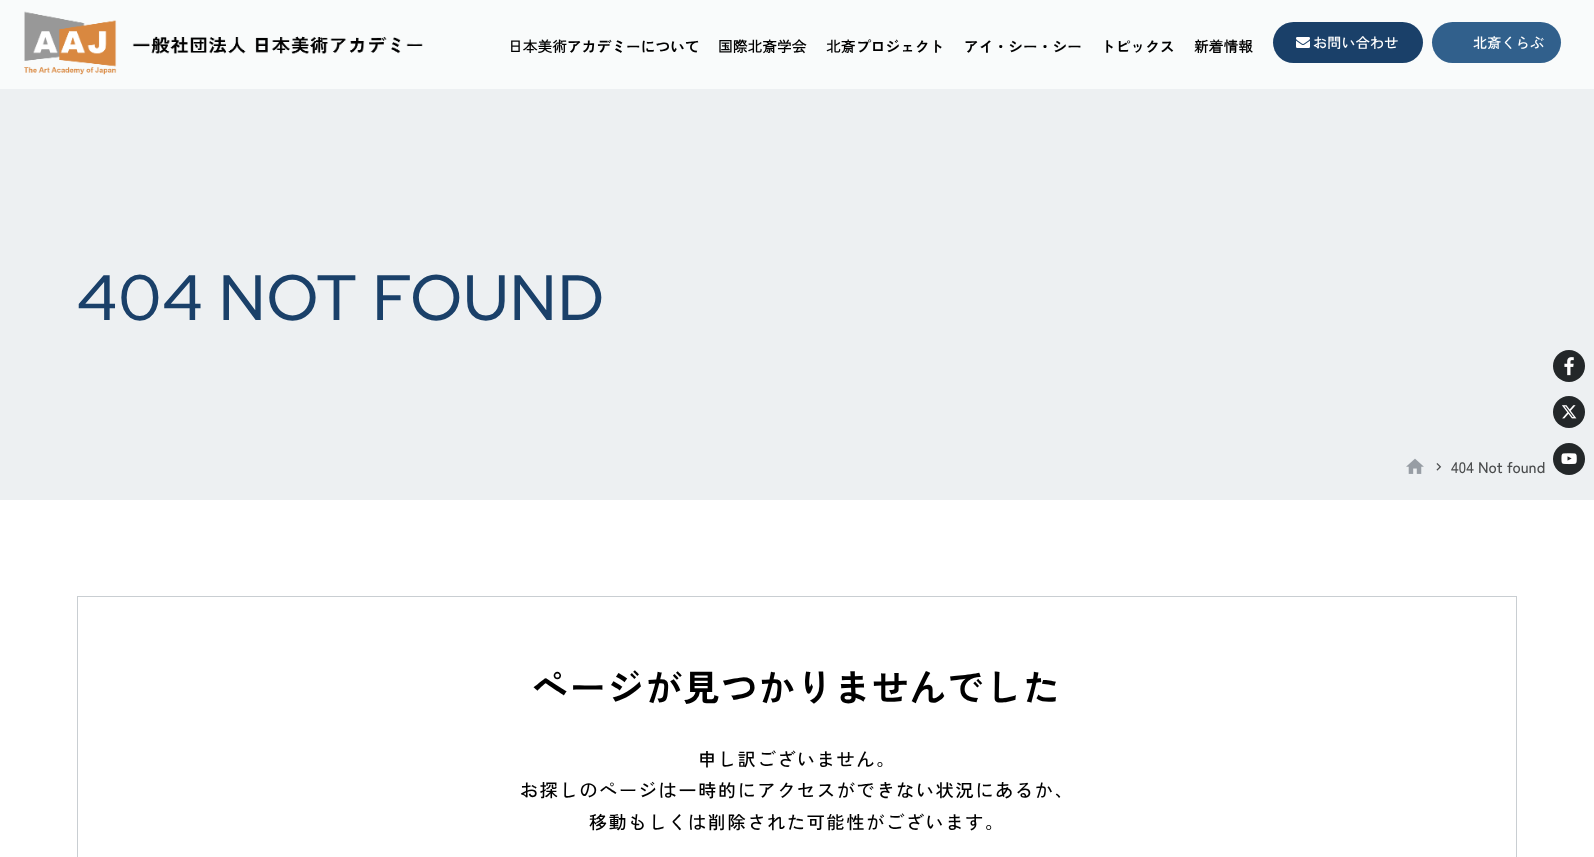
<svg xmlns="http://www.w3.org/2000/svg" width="1594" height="857">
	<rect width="100%" height="100%" fill="#FFFFFF" />
	<rect x="0" y="0" width="1594" height="89" fill="#F9FBFB" />
	<image x="24" y="11" width="399" height="64" href="assets/img1.png" />
	<text x="508" y="52" font-family="'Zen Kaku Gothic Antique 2'" font-size="14.5" font-weight="700" letter-spacing="0.25" fill="#000000">日本美術</text>
	<text x="567" y="52" font-family="Zen Kaku Gothic Antique" font-size="14.5" font-weight="700" letter-spacing="0.25" fill="#000000">アカデミーについて</text>
	<g font-family="'Zen Kaku Gothic Antique 2'" font-size="14.5" font-weight="700" letter-spacing="0.25" fill="#000000">
		<text x="718" y="52">国際北斎学会</text>
		<text x="826" y="52">北斎</text>
	</g>
	<g font-family="Zen Kaku Gothic Antique" font-size="14.5" font-weight="700" letter-spacing="0.25" fill="#000000">
		<text x="856" y="52">プロジェクト</text>
		<text x="964" y="52">アイ・シー・シー</text>
		<text x="1101" y="52">トピックス</text>
	</g>
	<text x="1194" y="52" font-family="'Zen Kaku Gothic Antique 2'" font-size="14.5" font-weight="700" letter-spacing="0.25" fill="#000000">新着情報</text>
	<rect x="1273" y="22" width="150" height="41" rx="20.5" fill="#1A4069" />
	<image x="1296" y="37" width="14" height="11" href="assets/img2.png" />
	<text x="1313" y="48" font-family="Zen Kaku Gothic Antique" font-size="14" font-weight="500" letter-spacing="0.25" fill="#FFFFFF">お問い合わせ</text>
	<rect x="1432" y="22" width="129" height="41" rx="20.5" fill="#31608C" />
	<text x="1473" y="48" font-family="Zen Kaku Gothic Antique" font-size="14" font-weight="500" letter-spacing="0.25" fill="#FFFFFF">北斎くらぶ</text>
	<rect x="0" y="89" width="1594" height="411" fill="#EDF0F2" />
	<text x="77" y="320" font-family="Red Hat Display" font-size="64" font-weight="500" letter-spacing="1.25" fill="#1A4069">404 NOT FOUND</text>
	<image x="1406" y="458" width="18" height="16" href="assets/img3.png" />
	<image x="1436" y="463" width="6" height="8" href="assets/img4.png" />
	<text x="1451" y="473" font-family="Zen Kaku Gothic Antique" font-size="15.25" font-weight="500" fill="#4B4D4E">404 Not found</text>
	<rect x="77.5" y="596.5" width="1439" height="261" fill="none" stroke="#C9CED2" />
	<text x="532" y="701" font-family="Zen Kaku Gothic Antique" font-size="36" font-weight="700" letter-spacing="1.8" fill="#000000">ページが見つかりませんでした</text>
	<g font-family="Zen Kaku Gothic Antique" font-size="18" font-weight="500" letter-spacing="1.8" fill="#000000">
		<text x="698" y="766">申し訳ございません。</text>
		<text x="520" y="797">お探しのページは一時的にアクセスができない状況にあるか、</text>
		<text x="589" y="829">移動もしくは削除された可能性がございます。</text>
	</g>
	<circle cx="1569" cy="366" r="16" fill="#232729" />
	<image x="1564" y="357" width="10" height="19" href="assets/img5.png" />
	<circle cx="1569" cy="412" r="16" fill="#232729" />
	<image x="1562" y="405" width="15" height="14" href="assets/img6.png" />
	<circle cx="1569" cy="459" r="16" fill="#232729" />
	<image x="1561" y="453" width="16" height="12" href="assets/img7.png" />
</svg>
